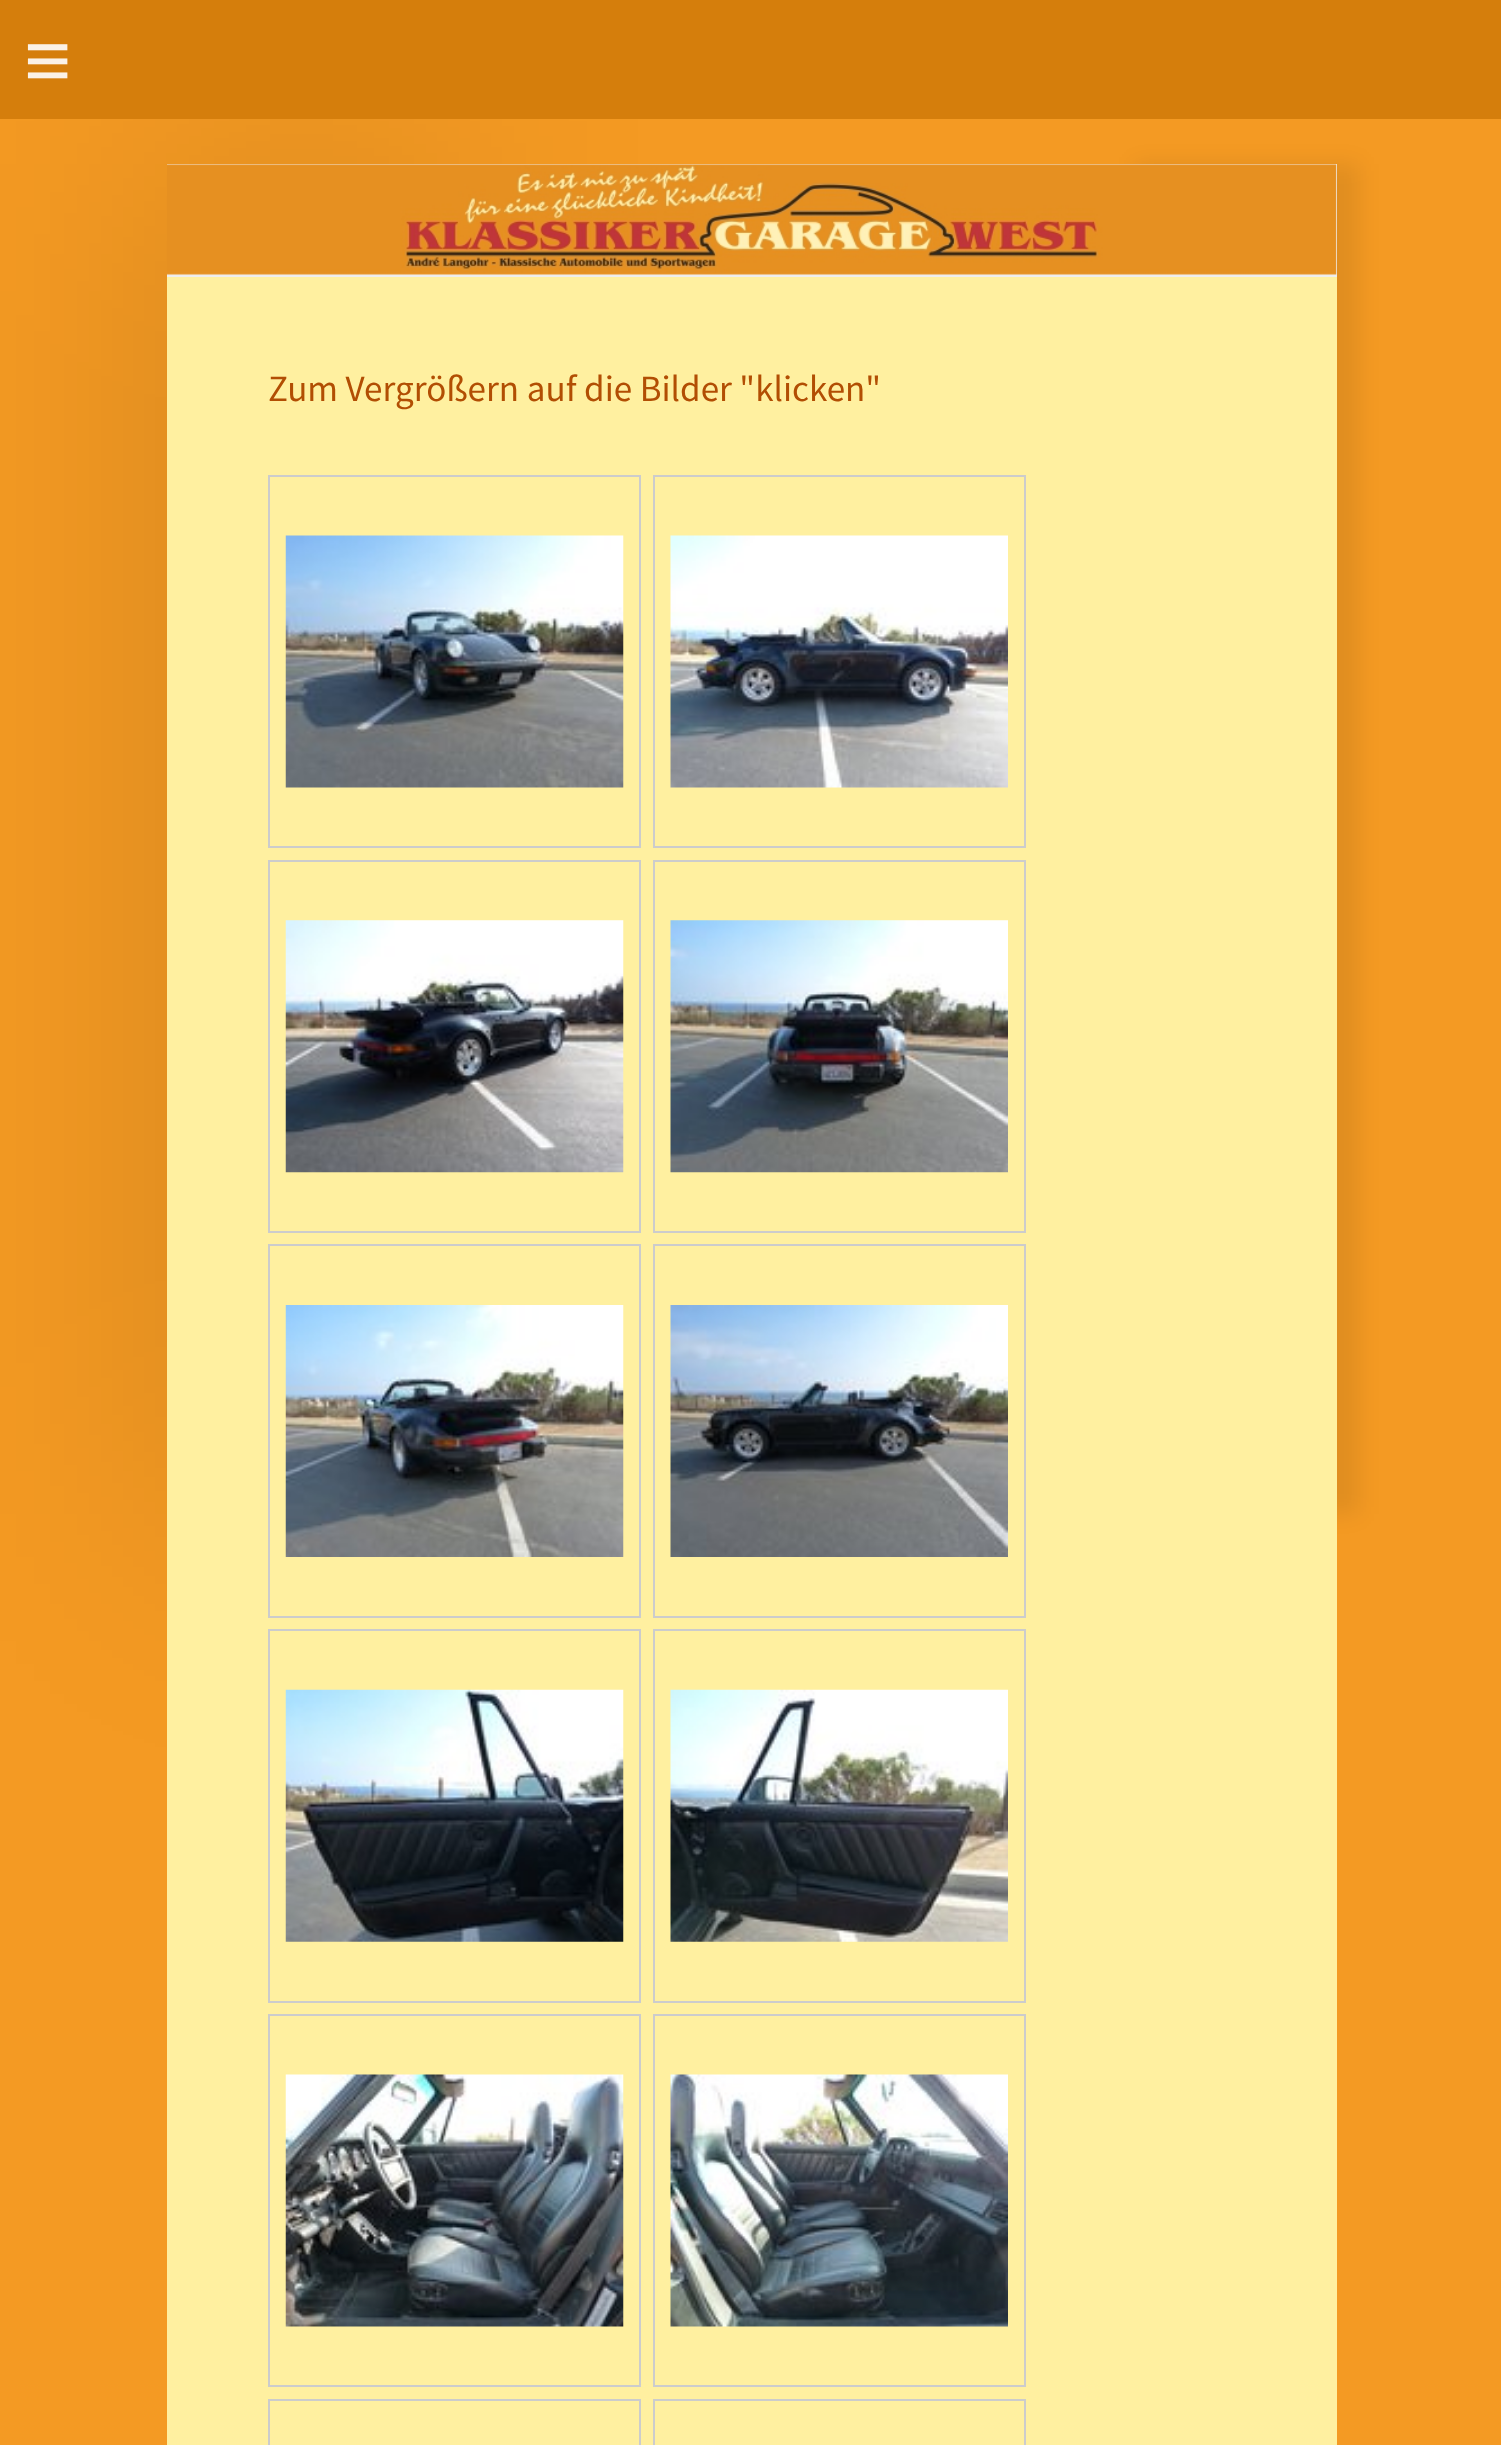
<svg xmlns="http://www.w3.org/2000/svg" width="1501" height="2445">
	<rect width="100%" height="100%" fill="#F49A23" />
	<rect x="189" y="164" width="225" height="1350" fill="#000000" fill-opacity="0.15" filter="blur(135px)" />
	<rect x="0" y="0" width="1501" height="119" fill="#D57E0C" />
	<text x="24" y="88" font-family="Liberation Sans" font-size="81" letter-spacing="24" fill="#FBF2E7">≡</text>
	<rect x="1134" y="164" width="225" height="1350" fill="#000000" fill-opacity="0.08" filter="blur(11px)" />
	<rect x="167" y="164" width="1170" height="113" fill="#EEEEEE" />
	<image x="167" y="164" width="1170" height="111" href="assets/img1.png" />
	<rect x="167" y="277" width="1170" height="2168" fill="#FFF0A0" />
	<text x="268" y="401" font-family="Source Sans Pro" font-size="37.1" fill="#B24E03">Zum Vergrößern auf die Bilder "klicken"</text>
	<rect x="269" y="476" width="371" height="371" fill="none" stroke="#CCCCCC" stroke-width="2" />
	<image x="285" y="535" width="339" height="253" href="assets/img2.png" />
	<rect x="654" y="476" width="371" height="371" fill="none" stroke="#CCCCCC" stroke-width="2" />
	<image x="670" y="535" width="338" height="253" href="assets/img3.png" />
	<rect x="269" y="861" width="371" height="371" fill="none" stroke="#CCCCCC" stroke-width="2" />
	<image x="285" y="920" width="339" height="253" href="assets/img4.png" />
	<rect x="654" y="861" width="371" height="371" fill="none" stroke="#CCCCCC" stroke-width="2" />
	<image x="670" y="920" width="338" height="253" href="assets/img5.png" />
	<rect x="269" y="1245" width="371" height="372" fill="none" stroke="#CCCCCC" stroke-width="2" />
	<image x="285" y="1305" width="339" height="252" href="assets/img6.png" />
	<rect x="654" y="1245" width="371" height="372" fill="none" stroke="#CCCCCC" stroke-width="2" />
	<image x="670" y="1305" width="338" height="252" href="assets/img7.png" />
	<rect x="269" y="1630" width="371" height="372" fill="none" stroke="#CCCCCC" stroke-width="2" />
	<image x="285" y="1689" width="339" height="253" href="assets/img8.png" />
	<rect x="654" y="1630" width="371" height="372" fill="none" stroke="#CCCCCC" stroke-width="2" />
	<image x="670" y="1689" width="338" height="253" href="assets/img9.png" />
	<rect x="269" y="2015" width="371" height="371" fill="none" stroke="#CCCCCC" stroke-width="2" />
	<image x="285" y="2074" width="339" height="253" href="assets/img10.png" />
	<rect x="654" y="2015" width="371" height="371" fill="none" stroke="#CCCCCC" stroke-width="2" />
	<image x="670" y="2074" width="338" height="253" href="assets/img11.png" />
	<rect x="269" y="2400" width="371" height="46" fill="none" stroke="#CCCCCC" stroke-width="2" />
	<rect x="654" y="2400" width="371" height="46" fill="none" stroke="#CCCCCC" stroke-width="2" />
</svg>
